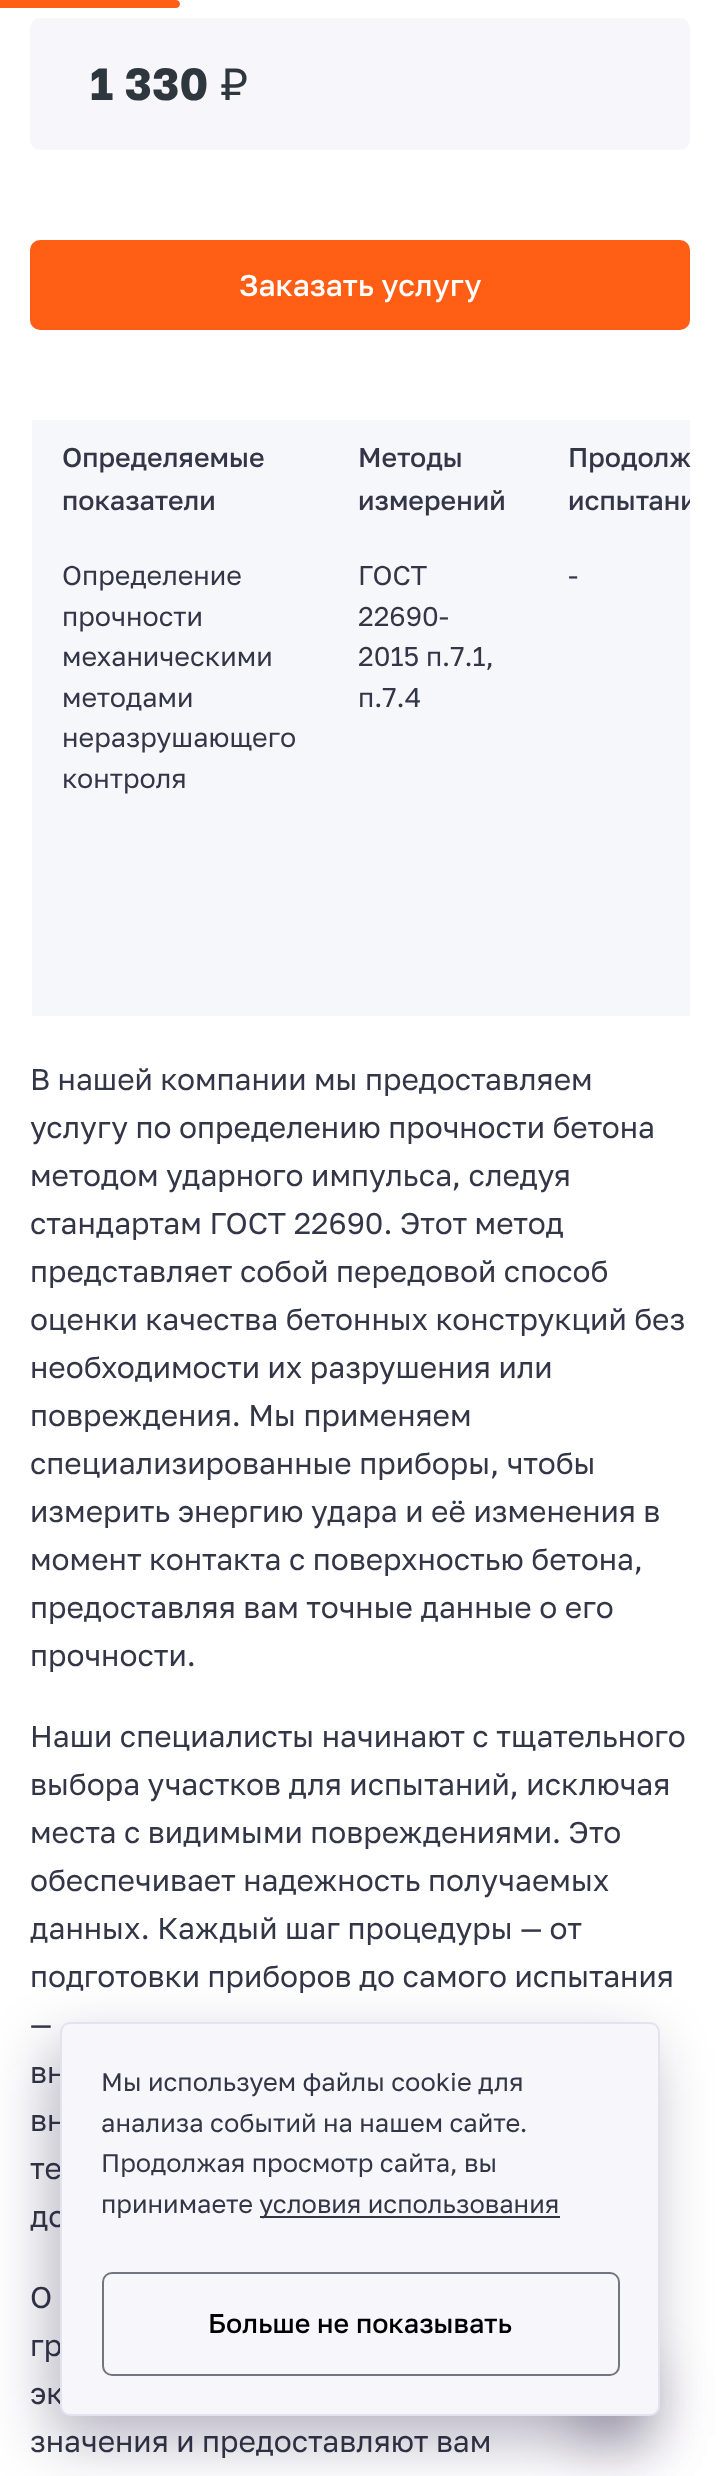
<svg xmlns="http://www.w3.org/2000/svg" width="720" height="2476">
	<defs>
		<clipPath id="clip1"><rect x="30" y="420" width="660" height="598" /></clipPath>
	</defs>
	<rect width="100%" height="100%" fill="#FFFFFF" />
	<path d="M0 0H176C178 0 180 2 180 4C180 6 178 8 176 8H0Z" fill="#FF5E14" />
	<rect x="30" y="18" width="660" height="132" rx="10" fill="#F7F6FB" />
	<text x="90" y="100" font-family="Golos Text" font-size="45" font-weight="700" fill="#2E363E">1 330</text>
	<text x="220" y="100" font-family="Golos Text" font-size="45" fill="#2E363E">₽</text>
	<rect x="30" y="240" width="660" height="90" rx="10" fill="#FF5E14" />
	<text x="239" y="296" font-family="Golos Text" font-size="30" font-weight="500" fill="#FFFFFF">Заказать услугу</text>
	<rect x="32" y="420" width="658" height="596" fill="#F6F7FB" />
	<g font-family="Golos Text" font-size="27" font-weight="500" fill="#333646">
		<text x="62" y="467">Определяемые</text>
		<text x="62" y="510">показатели</text>
		<text x="358" y="467">Методы</text>
		<text x="358" y="510">измерений</text>
		<text x="568" y="467">Продолж</text>
	</g>
	<g clip-path="url(#clip1)">
		<text x="568" y="510" font-family="Golos Text" font-size="27" font-weight="500" fill="#333646">испытани</text>
	</g>
	<g font-family="'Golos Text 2'" font-size="27" fill="#333646">
		<text x="62" y="585">Определение</text>
		<text x="62" y="626">прочности</text>
		<text x="62" y="666">механическими</text>
		<text x="62" y="707">методами</text>
		<text x="62" y="747">неразрушающего</text>
		<text x="62" y="788">контроля</text>
		<text x="358" y="585">ГОСТ</text>
		<text x="358" y="626">22690-</text>
		<text x="358" y="666">2015 п.7.1,</text>
		<text x="358" y="707">п.7.4</text>
		<text x="568" y="585">-</text>
	</g>
	<g font-family="'Golos Text 2'" font-size="30" fill="#333646">
		<text x="30" y="1090">В нашей компании мы предоставляем</text>
		<text x="30" y="1138">услугу по определению прочности бетона</text>
		<text x="30" y="1186">методом ударного импульса, следуя</text>
		<text x="30" y="1234">стандартам ГОСТ 22690. Этот метод</text>
		<text x="30" y="1282">представляет собой передовой способ</text>
		<text x="30" y="1330">оценки качества бетонных конструкций без</text>
		<text x="30" y="1378">необходимости их разрушения или</text>
		<text x="30" y="1426">повреждения. Мы применяем</text>
		<text x="30" y="1474">специализированные приборы, чтобы</text>
		<text x="30" y="1522">измерить энергию удара и её изменения в</text>
		<text x="30" y="1570">момент контакта с поверхностью бетона,</text>
		<text x="30" y="1618">предоставляя вам точные данные о его</text>
		<text x="30" y="1666">прочности.</text>
		<text x="30" y="1747">Наши специалисты начинают с тщательного</text>
		<text x="30" y="1795">выбора участков для испытаний, исключая</text>
		<text x="30" y="1843">места с видимыми повреждениями. Это</text>
		<text x="30" y="1891">обеспечивает надежность получаемых</text>
		<text x="30" y="1939">данных. Каждый шаг процедуры — от</text>
		<text x="30" y="1987">подготовки приборов до самого испытания</text>
		<text x="30" y="2035">—</text>
		<text x="30" y="2083">вн</text>
		<text x="30" y="2131">вн</text>
		<text x="30" y="2179">те</text>
		<text x="30" y="2227">до</text>
		<text x="30" y="2308">О</text>
		<text x="30" y="2356">гр</text>
		<text x="30" y="2404">эк</text>
		<text x="30" y="2452">значения и предоставляют вам</text>
	</g>
	<rect x="50" y="2046" width="600" height="394" rx="10" fill="#0F0831" fill-opacity="0.3" filter="blur(30px)" />
	<rect x="578" y="2368" width="72" height="72" rx="10" fill="#0F0831" fill-opacity="0.3" filter="blur(30px)" />
	<rect x="61" y="2023" width="598" height="392" rx="9" fill="#F7F6FB" stroke="#E2E3EE" stroke-width="2" />
	<g font-family="'Golos Text 2'" font-size="25.5" fill="#333646">
		<text x="101" y="2091">Мы используем файлы cookie для</text>
		<text x="101" y="2132">анализа событий на нашем сайте.</text>
		<text x="101" y="2172">Продолжая просмотр сайта, вы</text>
		<text x="101" y="2213">принимаете</text>
	</g>
	<rect x="260" y="2216" width="300" height="2" fill="#333646" />
	<text x="259" y="2213" font-family="'Golos Text 2'" font-size="25.5" fill="#333646">условия использования</text>
	<rect x="103" y="2273" width="516" height="102" rx="9" fill="none" stroke="#73767E" stroke-width="2" />
	<text x="208" y="2333" font-family="Golos Text" font-size="27" font-weight="500" fill="#000000">Больше не показывать</text>
</svg>
